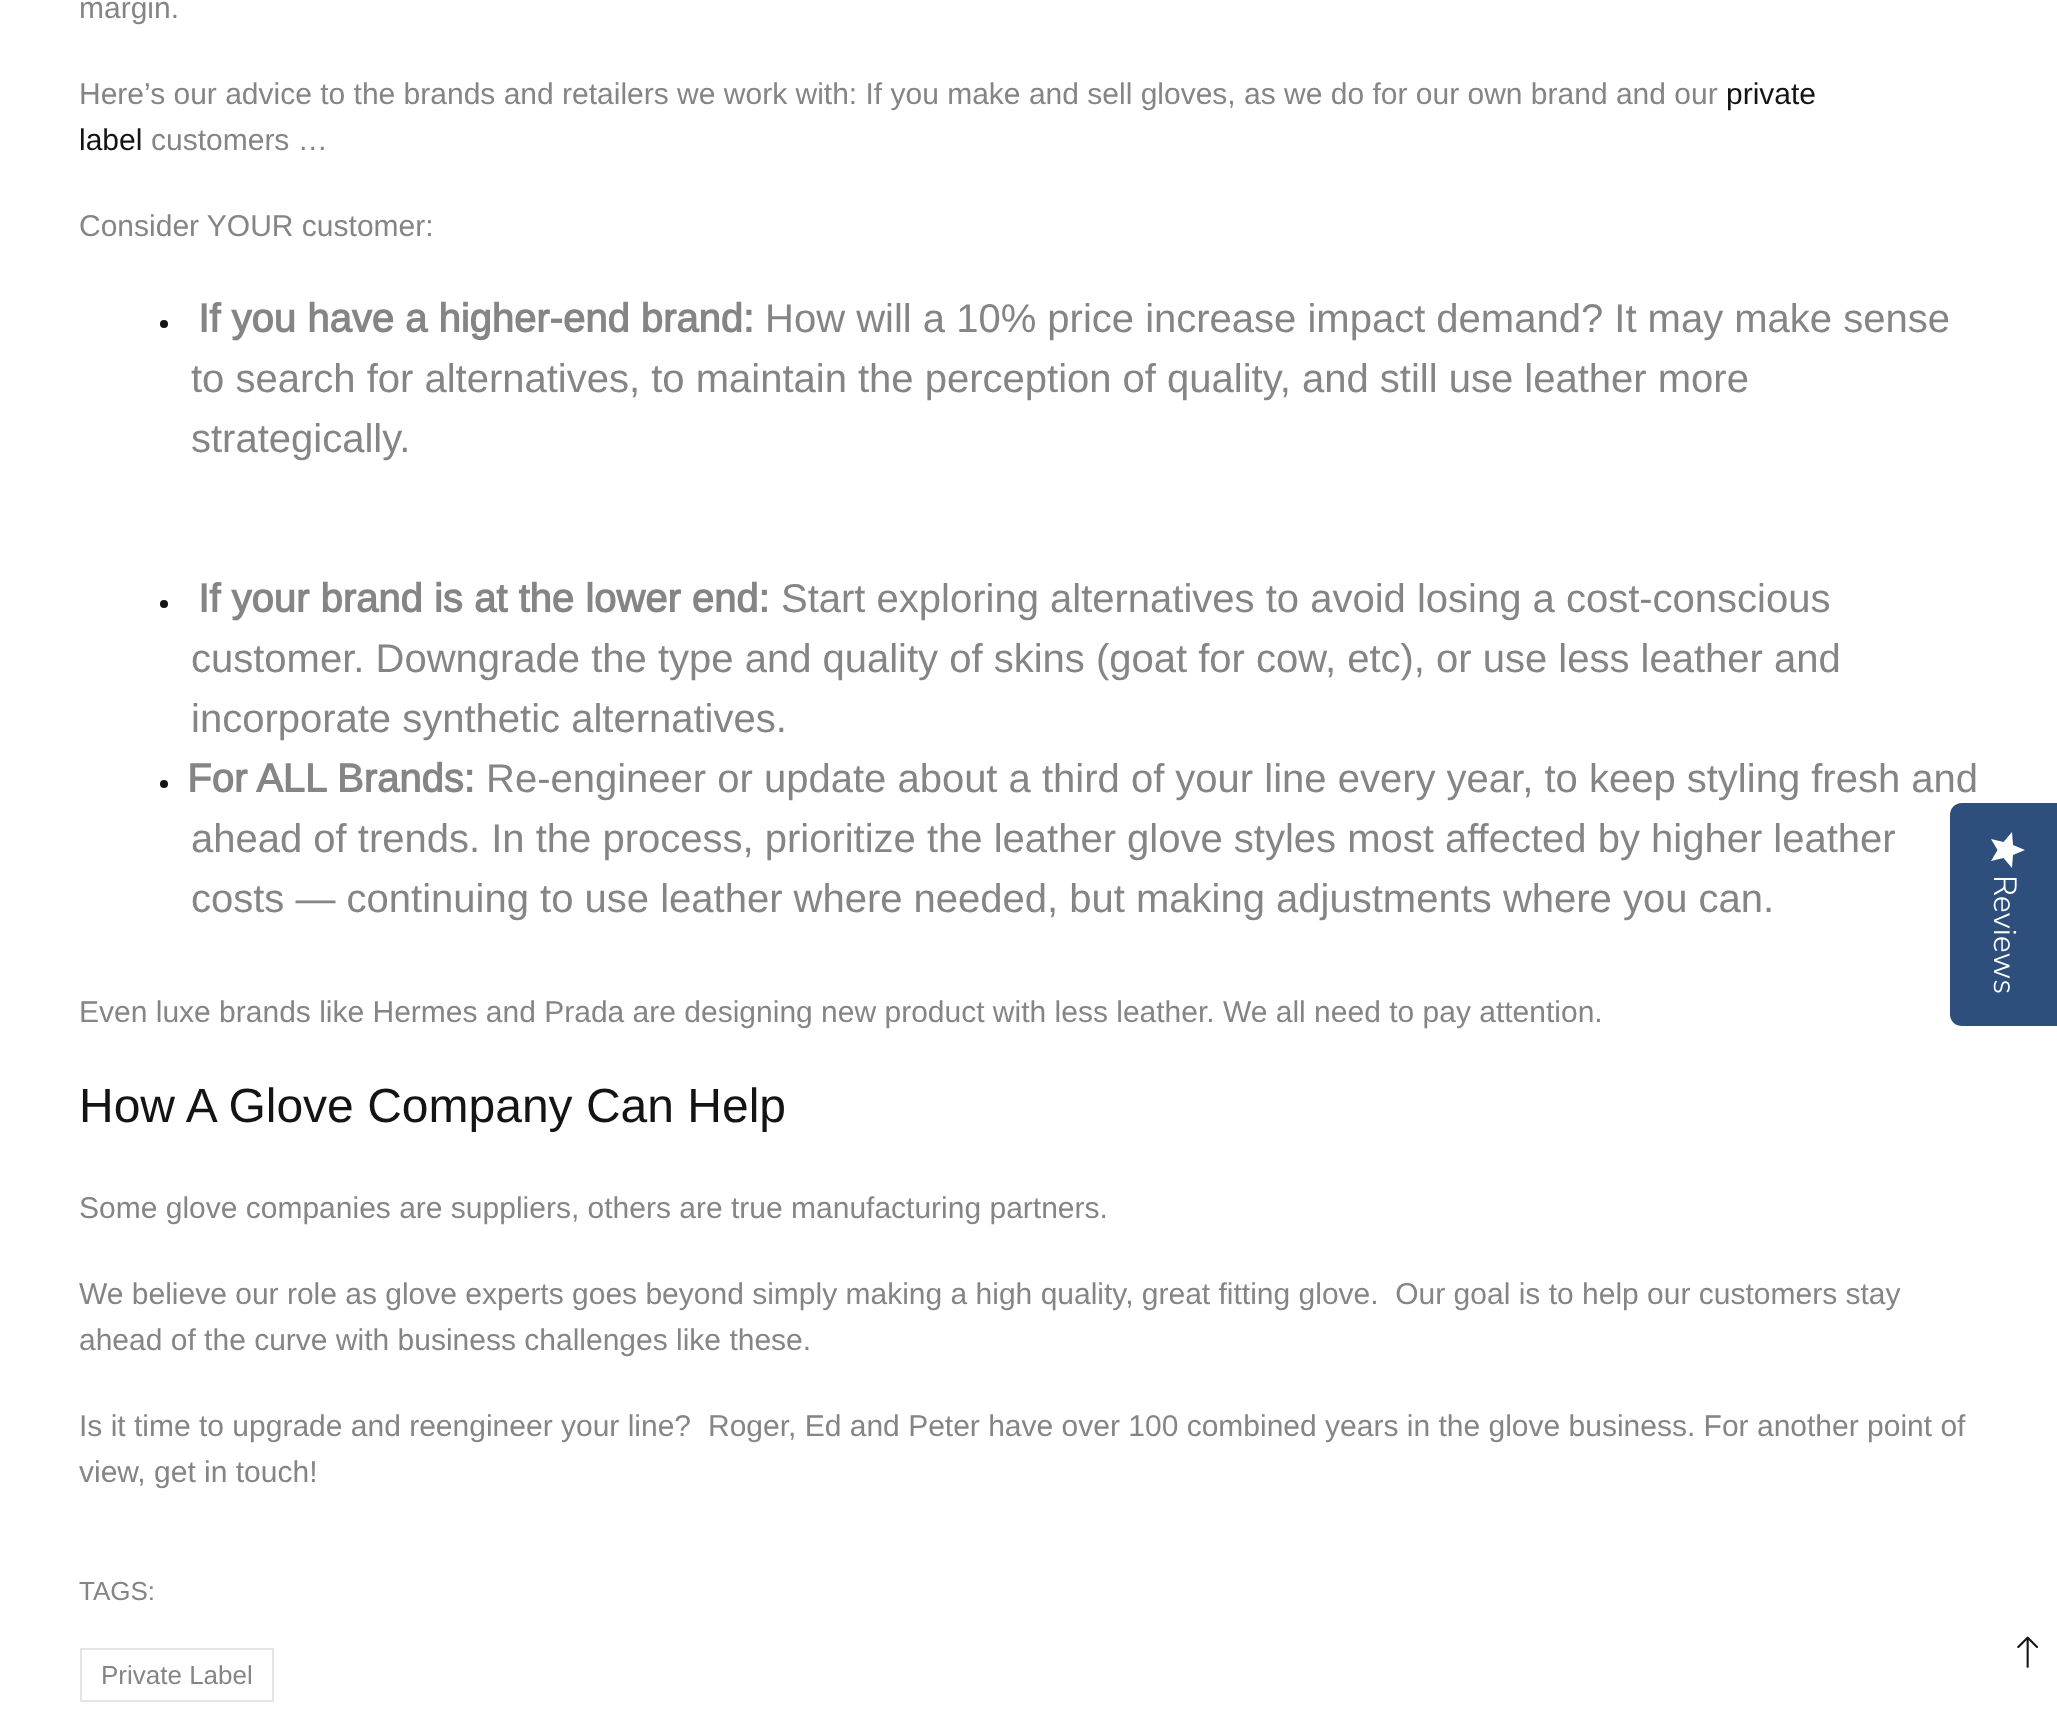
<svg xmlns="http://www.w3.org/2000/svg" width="2057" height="1713">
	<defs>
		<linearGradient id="g1" gradientUnits="userSpaceOnUse" x1="2025" y1="832" x2="2025" y2="868"><stop offset="1" stop-color="#FFFFFF" /><stop offset="1" stop-color="#EAEAEA" /></linearGradient>
	</defs>
	<rect width="100%" height="100%" fill="#FFFFFF" />
	<g font-family="Arimo" font-size="30" fill="#858585">
		<text x="79" y="18">margin.</text>
		<text x="79" y="104">Here’s our advice to the brands and retailers we work with: If you make and sell gloves, as we do for our own brand and our</text>
	</g>
	<g font-family="Arimo" font-size="30" fill="#141414">
		<text x="1726" y="104">private</text>
		<text x="79" y="150">label</text>
	</g>
	<g font-family="Arimo" font-size="30" fill="#858585">
		<text x="151" y="150">customers …</text>
		<text x="79" y="236">Consider YOUR customer:</text>
	</g>
	<circle cx="164" cy="324" r="4" fill="#141414" />
	<text x="198" y="332" font-family="Arimo" font-size="40" font-weight="700" fill="#858585">If you have a higher-end brand:</text>
	<g font-family="Arimo" font-size="40" fill="#858585">
		<text x="765" y="332">How will a 10% price increase impact demand? It may make sense</text>
		<text x="191" y="392">to search for alternatives, to maintain the perception of quality, and still use leather more</text>
		<text x="191" y="452">strategically.</text>
	</g>
	<circle cx="164" cy="604" r="4" fill="#141414" />
	<text x="198" y="612" font-family="Arimo" font-size="40" font-weight="700" fill="#858585">If your brand is at the lower end:</text>
	<g font-family="Arimo" font-size="40" fill="#858585">
		<text x="781" y="612">Start exploring alternatives to avoid losing a cost-conscious</text>
		<text x="191" y="672">customer. Downgrade the type and quality of skins (goat for cow, etc), or use less leather and</text>
		<text x="191" y="732">incorporate synthetic alternatives.</text>
	</g>
	<circle cx="164" cy="784" r="4" fill="#141414" />
	<text x="187" y="792" font-family="Arimo" font-size="40" font-weight="700" fill="#858585">For ALL Brands:</text>
	<g font-family="Arimo" font-size="40" fill="#858585">
		<text x="486" y="792">Re-engineer or update about a third of your line every year, to keep styling fresh and</text>
		<text x="191" y="852">ahead of trends. In the process, prioritize the leather glove styles most affected by higher leather</text>
		<text x="191" y="912">costs — continuing to use leather where needed, but making adjustments where you can.</text>
	</g>
	<text x="79" y="1022" font-family="Arimo" font-size="30" fill="#858585">Even luxe brands like Hermes and Prada are designing new product with less leather. We all need to pay attention.</text>
	<text x="79" y="1122" font-family="Arimo" font-size="48" fill="#141414">How A Glove Company Can Help</text>
	<g font-family="Arimo" font-size="30" fill="#858585">
		<text x="79" y="1218">Some glove companies are suppliers, others are true manufacturing partners.</text>
		<text x="79" y="1304" xml:space="preserve">We believe our role as glove experts goes beyond simply making a high quality, great fitting glove.  Our goal is to help our customers stay</text>
		<text x="79" y="1350">ahead of the curve with business challenges like these.</text>
		<text x="79" y="1436">Is it time to upgrade and reengineer your line?</text>
		<text x="708" y="1436">Roger, Ed and Peter have over 100 combined years in the glove business. For another point of</text>
		<text x="79" y="1482">view, get in touch!</text>
	</g>
	<text x="79" y="1600" font-family="Arimo" font-size="26" fill="#858585">TAGS:</text>
	<rect x="81" y="1649" width="192" height="52" fill="none" stroke="#E5E5E5" stroke-width="2" />
	<text x="101" y="1684" font-family="Arimo" font-size="26" fill="#858585">Private Label</text>
	<path d="M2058 803V1026H1962C1955 1026 1950 1021 1950 1014V815C1950 808 1955 803 1962 803Z" fill="#2E4F7C" />
	<path d="M1997.5 850L1991 861L2003.5 858L2012 868L2013 855L2025 850L2013 845L2012 832L2003.5 842L1991 839Z" fill="url(#g1)" />
	<text x="1994" y="875" transform="rotate(90 1994 875)" font-family="Nunito Sans" font-size="32" font-weight="300" fill="#FFFFFF">Reviews</text>
	<image x="2017" y="1636" width="21" height="32" href="assets/img1.png" />
</svg>
